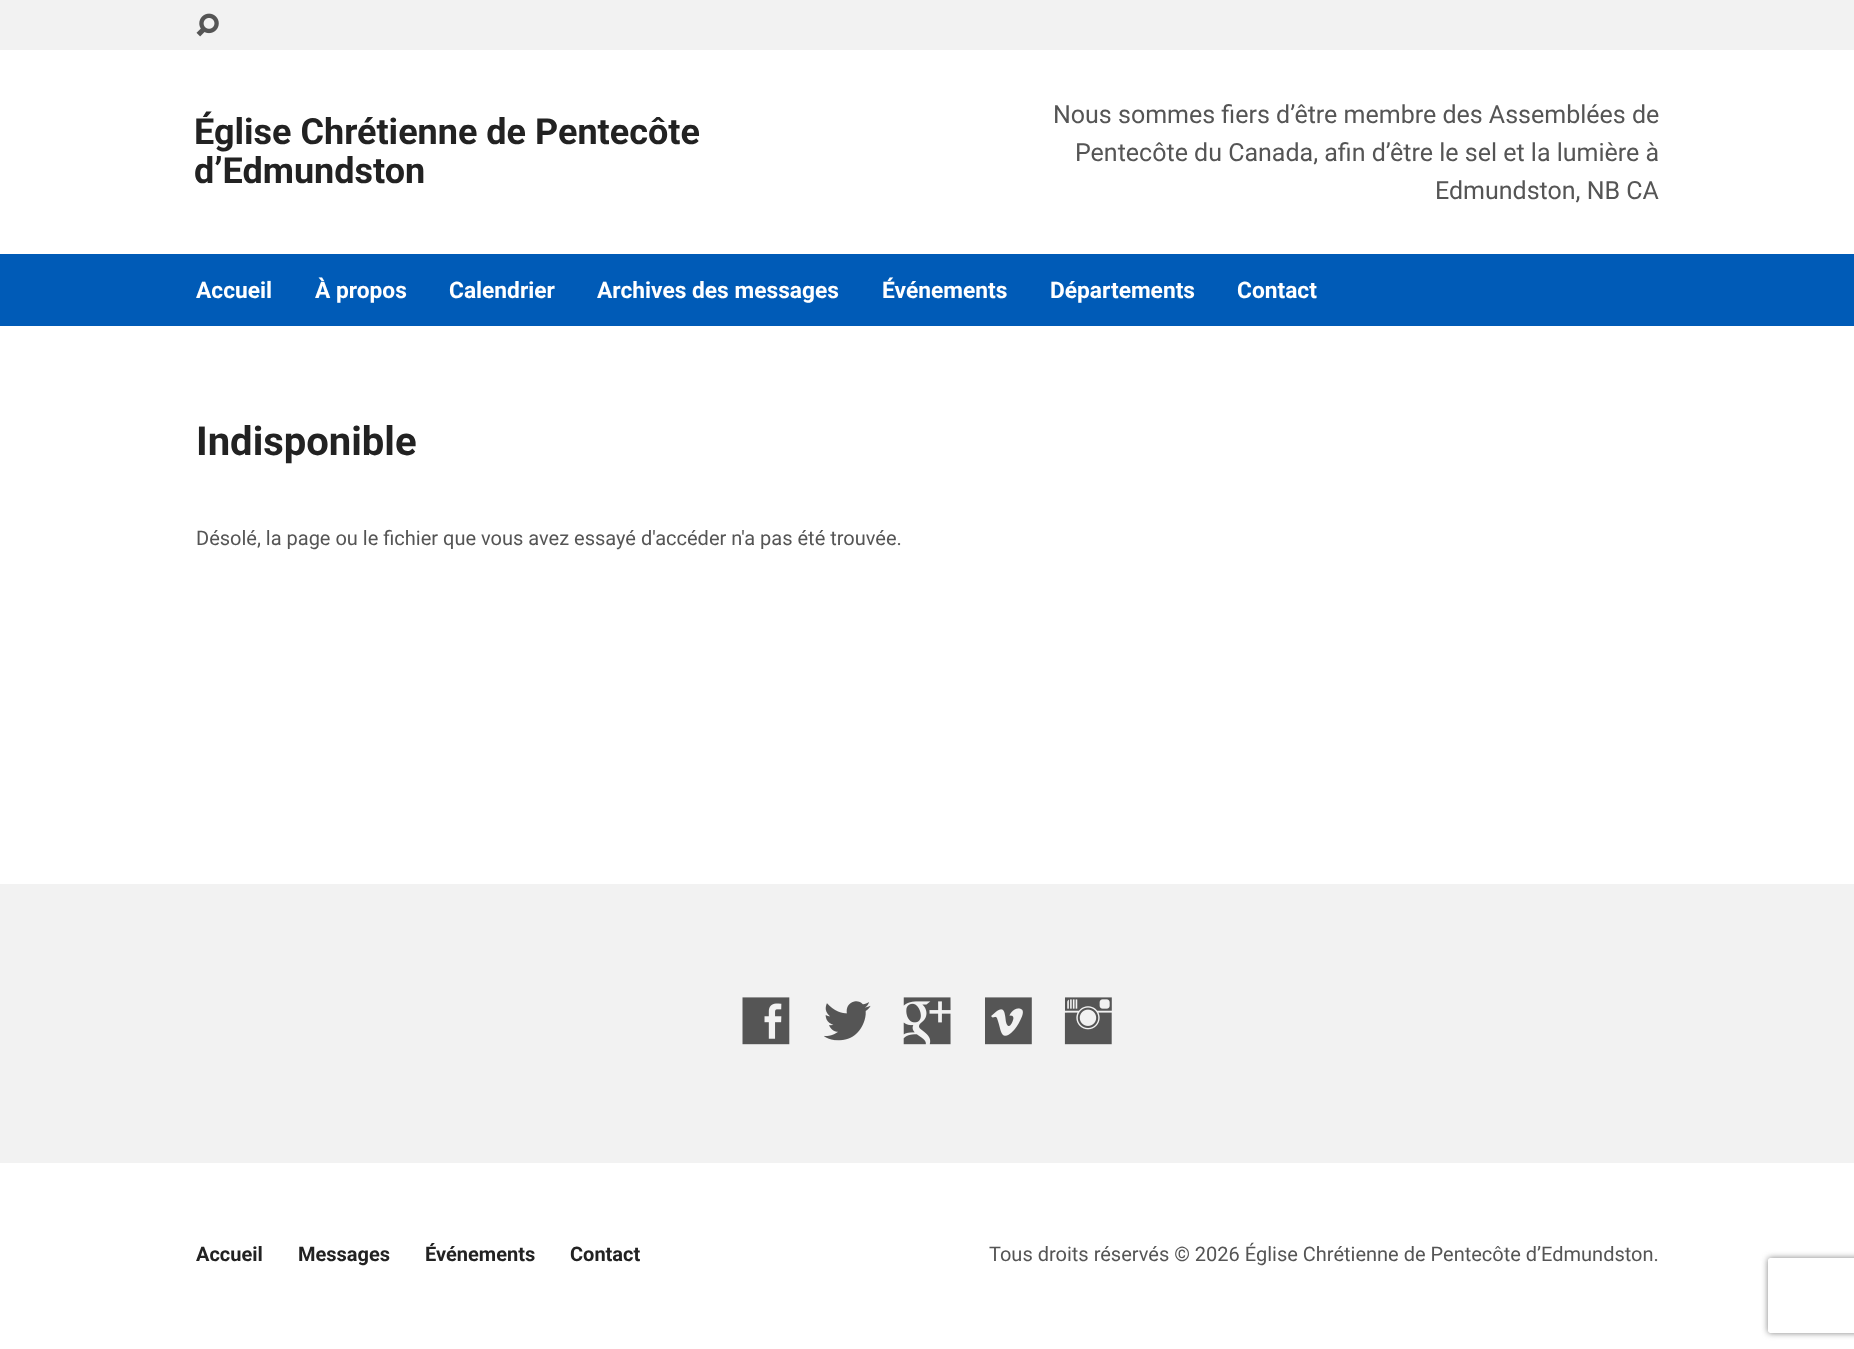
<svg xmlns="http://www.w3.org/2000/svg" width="1854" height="1349">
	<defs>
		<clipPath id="clip1"><path d="M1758 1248H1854V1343H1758ZM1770.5 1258H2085.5C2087 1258 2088 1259 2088 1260.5V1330.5C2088 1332 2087 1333 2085.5 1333H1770.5C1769 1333 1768 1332 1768 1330.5V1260.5C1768 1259 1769 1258 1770.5 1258Z" clip-rule="evenodd" /></clipPath>
	</defs>
	<rect width="100%" height="100%" fill="#FFFFFF" />
	<rect x="0" y="0" width="1854" height="50" fill="#F2F2F2" />
	<image x="196" y="13" width="23" height="24" href="assets/img1.png" />
	<g font-family="Roboto" font-size="36" font-weight="700" fill="#222222">
		<text x="194" y="144">Église Chrétienne de Pentecôte</text>
		<text x="194" y="183">d’Edmundston</text>
	</g>
	<g font-family="Roboto" font-size="25" fill="#555555">
		<text x="1053" y="123">Nous sommes fiers d’être membre des Assemblées de</text>
		<text x="1075" y="161">Pentecôte du Canada, afin d’être le sel et la lumière à</text>
		<text x="1435" y="199">Edmundston, NB CA</text>
	</g>
	<rect x="0" y="254" width="1854" height="72" fill="#005BB7" />
	<g font-family="Roboto" font-size="22.75" font-weight="700" fill="#FFFFFF">
		<text x="196" y="298">Accueil</text>
		<text x="315" y="298">À propos</text>
		<text x="449" y="298">Calendrier</text>
		<text x="597" y="298">Archives des messages</text>
		<text x="882" y="298">Événements</text>
		<text x="1050" y="298">Départements</text>
		<text x="1237" y="298">Contact</text>
	</g>
	<text x="196" y="455" font-family="Roboto" font-size="40" font-weight="700" fill="#222222">Indisponible</text>
	<text x="196" y="545" font-family="Roboto" font-size="20" fill="#555555">Désolé, la page ou le fichier que vous avez essayé d'accéder n'a pas été trouvée.</text>
	<rect x="0" y="884" width="1854" height="279" fill="#F2F2F2" />
	<image x="742" y="997" width="48" height="48" href="assets/img2.png" />
	<image x="824" y="1001" width="47" height="40" href="assets/img3.png" />
	<image x="903" y="997" width="48" height="48" href="assets/img4.png" />
	<image x="985" y="997" width="47" height="48" href="assets/img5.png" />
	<image x="1064" y="997" width="48" height="48" href="assets/img6.png" />
	<g font-family="Roboto" font-size="20" font-weight="700" fill="#222222">
		<text x="196" y="1261">Accueil</text>
		<text x="298" y="1261">Messages</text>
		<text x="425" y="1261">Événements</text>
		<text x="570" y="1261">Contact</text>
	</g>
	<text x="989" y="1261" font-family="Roboto" font-size="20" fill="#555555">Tous droits réservés © 2026 Église Chrétienne de Pentecôte d’Edmundston.</text>
	<g clip-path="url(#clip1)">
		<rect x="1768" y="1258" width="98" height="75" rx="2.5" fill="#808080" filter="blur(3px)" />
	</g>
</svg>
